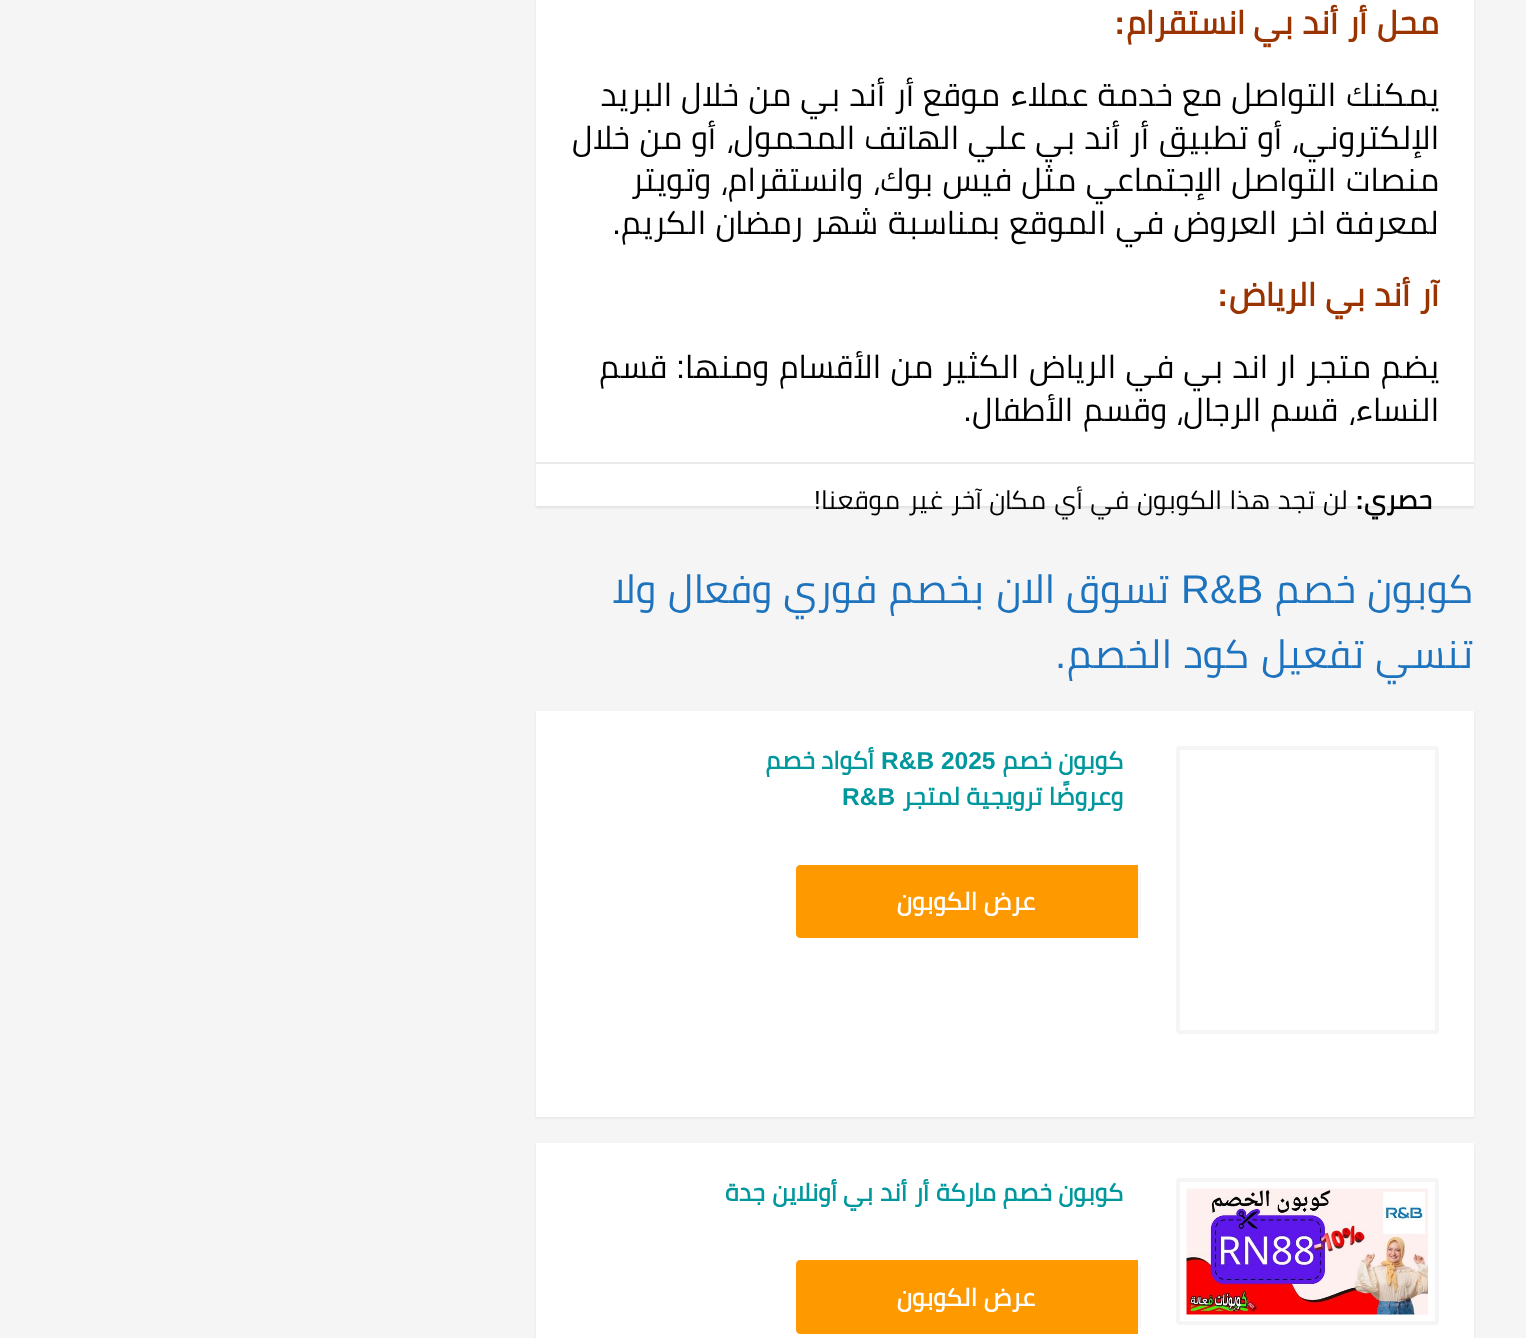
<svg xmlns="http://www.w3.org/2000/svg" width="1526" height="1338">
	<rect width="100%" height="100%" fill="#F5F5F5" />
	<rect x="536" y="-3" width="938" height="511" fill="#000000" fill-opacity="0.08" filter="blur(1px)" />
	<rect x="536" y="0" width="938" height="506" fill="#FFFFFF" />
	<g font-family="Cairo" font-size="32.5" font-weight="700" direction="rtl" fill="#993300">
		<text x="1439" y="34">محل</text>
		<text x="1367" y="34">أر</text>
		<text x="1338" y="34">أند</text>
		<text x="1293" y="34">بي</text>
		<text x="1245" y="34">انستقرام</text>
	</g>
	<text x="1125" y="34" font-family="Liberation Sans" font-size="32.5" font-weight="700" direction="rtl" fill="#993300">:</text>
	<g font-family="Cairo" font-size="32.5" direction="rtl" fill="#000000">
		<text x="1439" y="106">يمكنك</text>
		<text x="1336" y="106">التواصل</text>
		<text x="1222" y="106">مع</text>
		<text x="1173" y="106">خدمة</text>
		<text x="1088" y="106">عملاء</text>
		<text x="1000" y="106">موقع</text>
		<text x="914" y="106">أر</text>
		<text x="885" y="106">أند</text>
		<text x="840" y="106">بي</text>
		<text x="791" y="106">من</text>
		<text x="739" y="106">خلال</text>
		<text x="672" y="106">البريد</text>
		<text x="1439" y="149">الإلكتروني،</text>
		<text x="1282" y="149">أو</text>
		<text x="1248" y="149">تطبيق</text>
		<text x="1149" y="149">أر</text>
		<text x="1120" y="149">أند</text>
		<text x="1075" y="149">بي</text>
		<text x="1026" y="149">علي</text>
		<text x="959" y="149">الهاتف</text>
		<text x="855" y="149">المحمول،</text>
		<text x="716" y="149">أو</text>
		<text x="682" y="149">من</text>
		<text x="630" y="149">خلال</text>
		<text x="1439" y="191">منصات</text>
		<text x="1336" y="191">التواصل</text>
		<text x="1222" y="191">الإجتماعي</text>
		<text x="1076" y="191">مثل</text>
		<text x="1012" y="191">فيس</text>
		<text x="933" y="191">بوك،</text>
		<text x="863" y="191">وانستقرام،</text>
		<text x="711" y="191">وتويتر</text>
		<text x="1439" y="234">لمعرفة</text>
		<text x="1326" y="234">اخر</text>
		<text x="1277" y="234">العروض</text>
		<text x="1164" y="234">في</text>
		<text x="1106" y="234">الموقع</text>
		<text x="1000" y="234">بمناسبة</text>
		<text x="878" y="234">شهر</text>
		<text x="803" y="234">رمضان</text>
		<text x="706" y="234">الكريم</text>
	</g>
	<text x="621" y="234" font-family="Liberation Sans" font-size="32.5" direction="rtl" fill="#000000">.</text>
	<g font-family="Cairo" font-size="32.5" font-weight="700" direction="rtl" fill="#993300">
		<text x="1439" y="306">آر</text>
		<text x="1410" y="306">أند</text>
		<text x="1365" y="306">بي</text>
		<text x="1316" y="306">الرياض</text>
	</g>
	<text x="1228" y="306" font-family="Liberation Sans" font-size="32.5" font-weight="700" direction="rtl" fill="#993300">:</text>
	<g font-family="Cairo" font-size="32.5" direction="rtl" fill="#000000">
		<text x="1439" y="378">يضم</text>
		<text x="1371" y="378">متجر</text>
		<text x="1296" y="378">ار</text>
		<text x="1268" y="378">اند</text>
		<text x="1223" y="378">بي</text>
		<text x="1174" y="378">في</text>
		<text x="1116" y="378">الرياض</text>
		<text x="1019" y="378">الكثير</text>
		<text x="933" y="378">من</text>
		<text x="881" y="378">الأقسام</text>
		<text x="769" y="378">ومنها</text>
	</g>
	<text x="685" y="378" font-family="Liberation Sans" font-size="32.5" direction="rtl" fill="#000000">:</text>
	<g font-family="Cairo" font-size="32.5" direction="rtl" fill="#000000">
		<text x="667" y="378">قسم</text>
		<text x="1439" y="421">النساء،</text>
		<text x="1338" y="421">قسم</text>
		<text x="1261" y="421">الرجال،</text>
		<text x="1167" y="421">وقسم</text>
		<text x="1073" y="421">الأطفال</text>
	</g>
	<text x="972" y="421" font-family="Liberation Sans" font-size="32.5" direction="rtl" fill="#000000">.</text>
	<rect x="536" y="462" width="938" height="2" fill="#E9E9E9" />
	<text x="1432" y="509" font-family="Cairo" font-size="26" font-weight="700" direction="rtl" fill="#000000">حصري</text>
	<text x="1364" y="509" font-family="Liberation Sans" font-size="26" font-weight="700" direction="rtl" fill="#000000">:</text>
	<g font-family="Cairo" font-size="26" direction="rtl" fill="#000000">
		<text x="1348" y="509">لن</text>
		<text x="1315" y="509">تجد</text>
		<text x="1270" y="509">هذا</text>
		<text x="1222" y="509">الكوبون</text>
		<text x="1129" y="509">في</text>
		<text x="1083" y="509">أي</text>
		<text x="1046" y="509">مكان</text>
		<text x="982" y="509">آخر</text>
		<text x="943" y="509">غير</text>
		<text x="900" y="509">موقعنا</text>
	</g>
	<text x="821" y="509" font-family="Liberation Sans" font-size="26" direction="rtl" fill="#000000">!</text>
	<g font-family="Cairo" font-size="40" direction="rtl" fill="#1E73BE">
		<text x="1473" y="603">كوبون</text>
		<text x="1356" y="603">خصم</text>
	</g>
	<text x="1181" y="603" font-family="Liberation Sans" font-size="40" fill="#1E73BE">R&amp;B</text>
	<g font-family="Cairo" font-size="40" direction="rtl" fill="#1E73BE">
		<text x="1169" y="603">تسوق</text>
		<text x="1055" y="603">الان</text>
		<text x="984" y="603">بخصم</text>
		<text x="877" y="603">فوري</text>
		<text x="772" y="603">وفعال</text>
		<text x="656" y="603">ولا</text>
		<text x="1473" y="668">تنسي</text>
		<text x="1364" y="668">تفعيل</text>
		<text x="1249" y="668">كود</text>
		<text x="1172" y="668">الخصم</text>
	</g>
	<text x="1066" y="668" font-family="Liberation Sans" font-size="40" direction="rtl" fill="#1E73BE">.</text>
	<rect x="536" y="712" width="938" height="406" fill="#000000" fill-opacity="0.08" filter="blur(1px)" />
	<rect x="536" y="711" width="938" height="406" fill="#FFFFFF" />
	<rect x="1178" y="748" width="259" height="284" rx="2" fill="none" stroke="#F5F5F5" stroke-width="4" />
	<g font-family="Cairo" font-size="24.5" font-weight="700" direction="rtl" fill="#00979D">
		<text x="1123" y="769">كوبون</text>
		<text x="1052" y="769">خصم</text>
	</g>
	<text x="881" y="769" font-family="Liberation Sans" font-size="24.5" font-weight="700" fill="#00979D">R&amp;B 2025</text>
	<g font-family="Cairo" font-size="24.5" font-weight="700" direction="rtl" fill="#00979D">
		<text x="874" y="769">أكواد</text>
		<text x="815" y="769">خصم</text>
		<text x="1123" y="805">وعروضًا</text>
		<text x="1042" y="805">ترويجية</text>
		<text x="960" y="805">لمتجر</text>
	</g>
	<text x="842" y="805" font-family="Liberation Sans" font-size="24.5" font-weight="700" fill="#00979D">R&amp;B</text>
	<rect x="800" y="868" width="341" height="67" rx="5" fill="#F7F7F7" />
	<path d="M800 865H1138V938H800C798 938 796 936 796 934V869C796 867 798 865 800 865Z" fill="#FF9900" />
	<g font-family="Cairo" font-size="24.5" font-weight="700" direction="rtl" fill="#FFFFFF">
		<text x="1035" y="910">عرض</text>
		<text x="977" y="910">الكوبون</text>
	</g>
	<rect x="536" y="1145" width="938" height="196" fill="#000000" fill-opacity="0.08" filter="blur(1px)" />
	<rect x="536" y="1143" width="938" height="195" fill="#FFFFFF" />
	<rect x="1178" y="1180" width="259" height="143" rx="2" fill="none" stroke="#F5F5F5" stroke-width="4" />
	<image x="1186" y="1188" width="242" height="127" href="assets/img1.png" />
	<g font-family="Cairo" font-size="24.5" font-weight="700" direction="rtl" fill="#00979D">
		<text x="1123" y="1201">كوبون</text>
		<text x="1052" y="1201">خصم</text>
		<text x="996" y="1201">ماركة</text>
		<text x="929" y="1201">أر</text>
		<text x="907" y="1201">أند</text>
		<text x="873" y="1201">بي</text>
		<text x="837" y="1201">أونلاين</text>
		<text x="765" y="1201">جدة</text>
	</g>
	<rect x="800" y="1264" width="341" height="66" rx="5" fill="#F7F7F7" />
	<path d="M800 1260H1138V1334H800C798 1334 796 1332 796 1330V1264C796 1262 798 1260 800 1260Z" fill="#FF9900" />
	<g font-family="Cairo" font-size="24.5" font-weight="700" direction="rtl" fill="#FFFFFF">
		<text x="1035" y="1306">عرض</text>
		<text x="977" y="1306">الكوبون</text>
	</g>
</svg>
